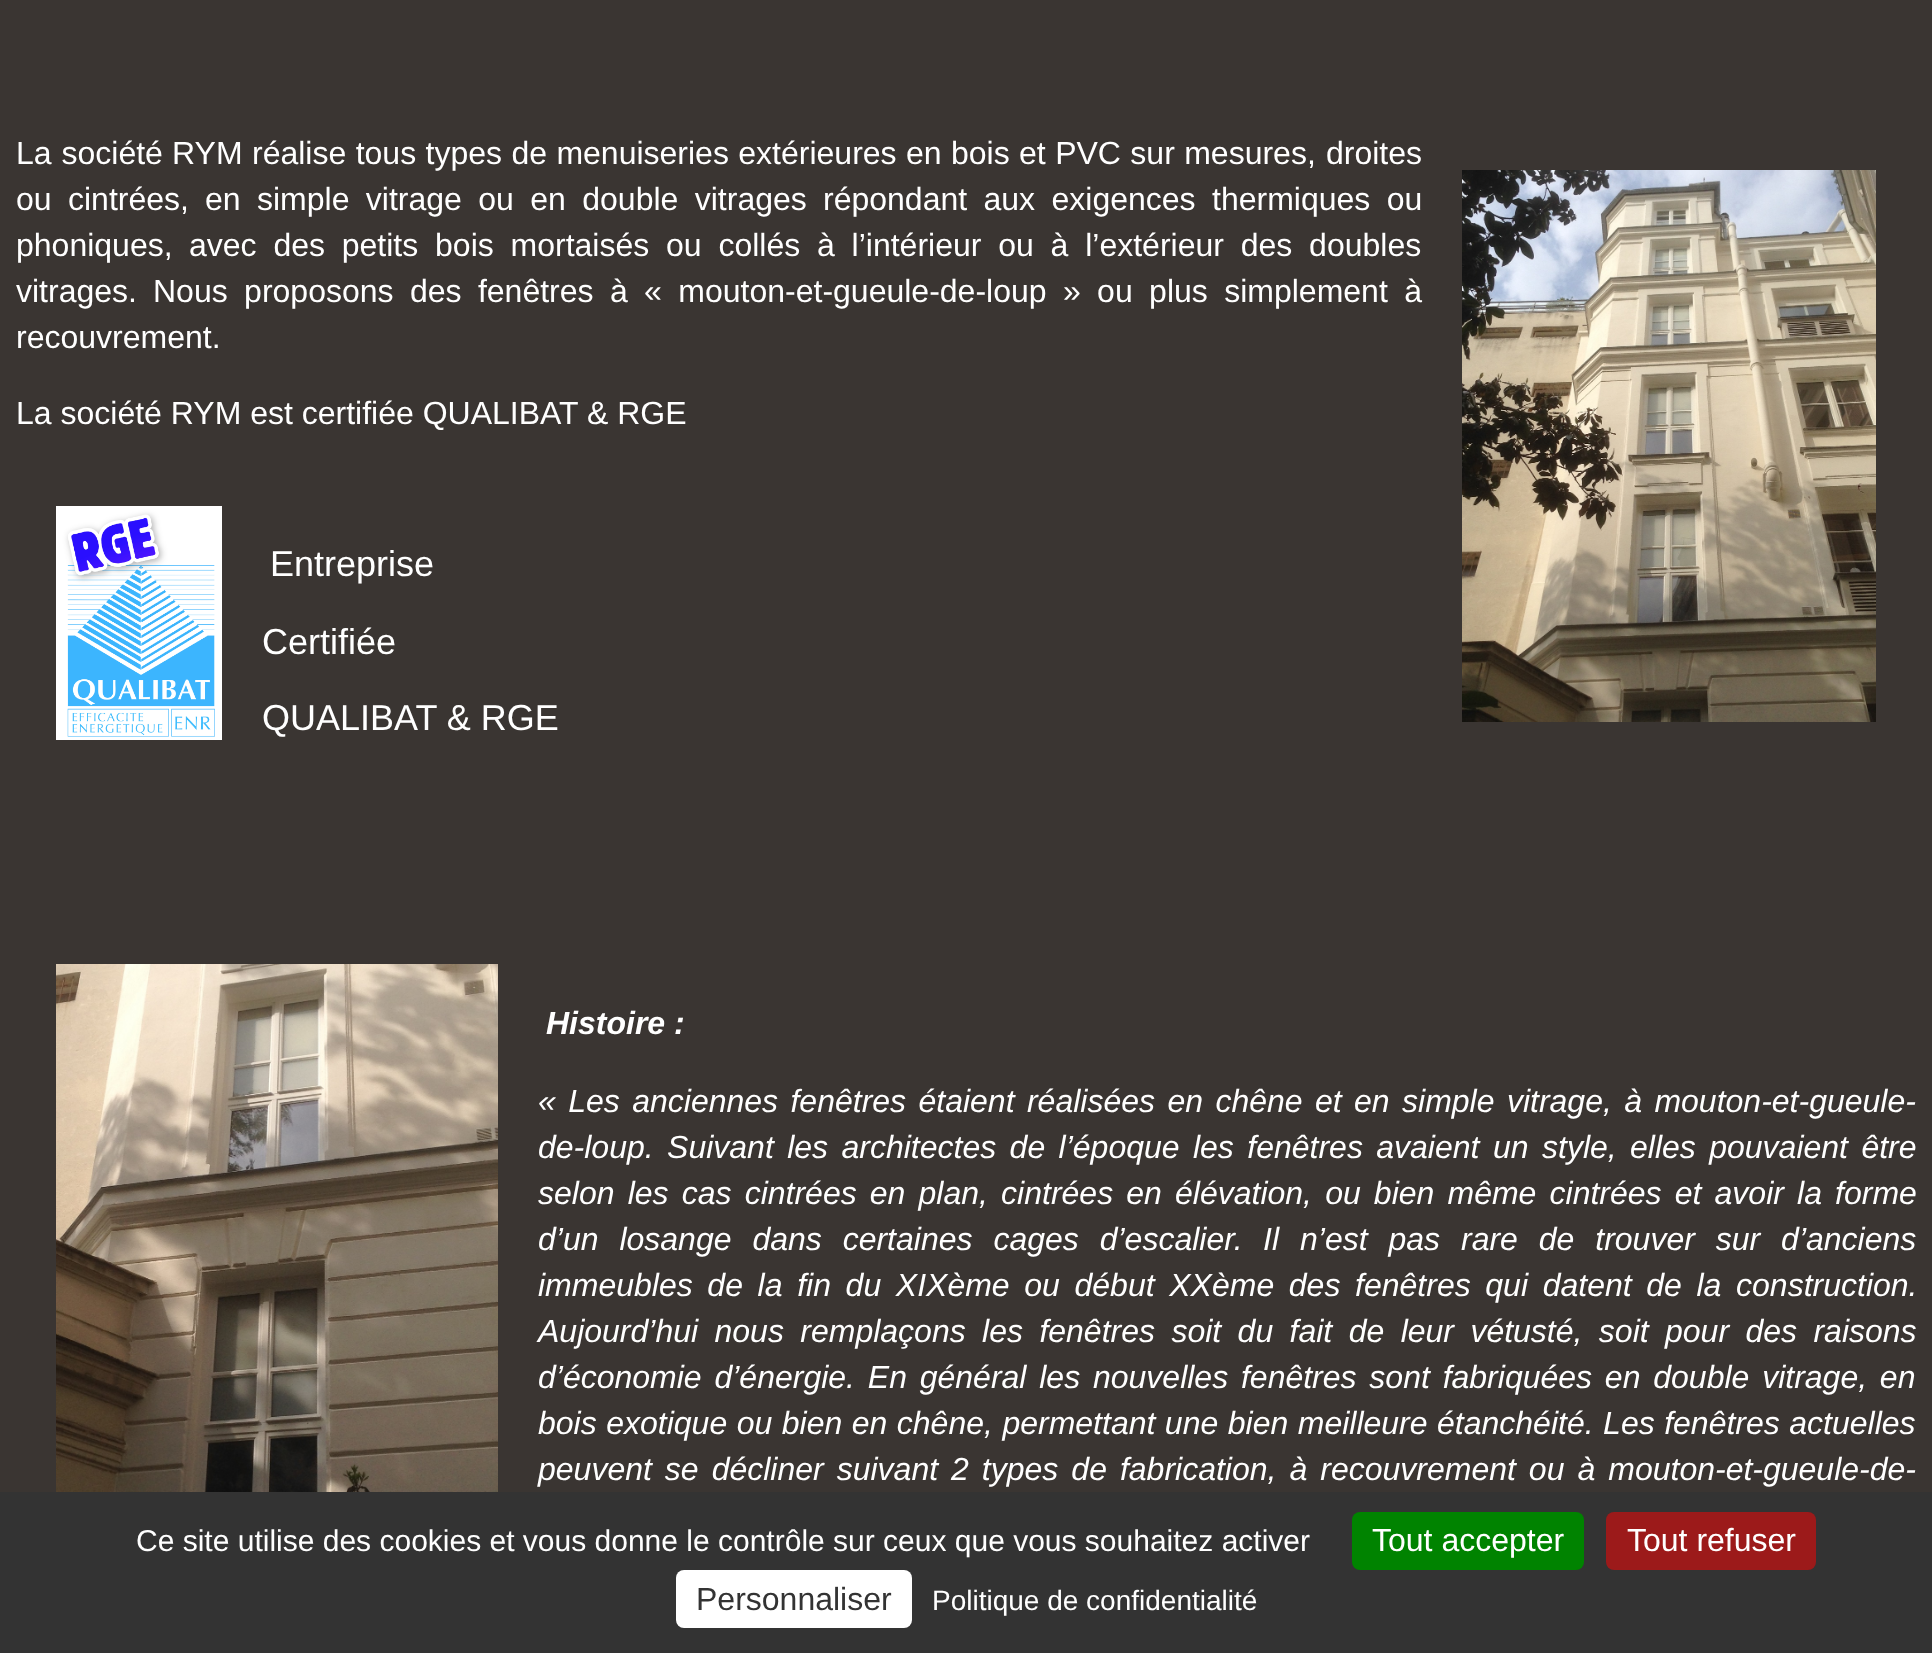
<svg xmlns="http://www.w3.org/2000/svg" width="1932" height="1653">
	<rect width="100%" height="100%" fill="#3A3532" />
	<g font-family="Liberation Sans" font-size="32" fill="#FFFFFF">
		<text x="16" y="164" word-spacing="1">La société</text>
		<text x="172" y="164">RYM</text>
		<text x="252" y="164" word-spacing="0.5">réalise tous types de menuiseries extérieures en bois et PVC sur mesures,</text>
	</g>
	<image x="1462" y="170" width="414" height="552" href="assets/img1.png" />
	<g font-family="Liberation Sans" font-size="32" fill="#FFFFFF">
		<text x="1326" y="164">droites</text>
		<text x="16" y="210" word-spacing="7.5">ou cintrées,</text>
		<text x="205" y="210" word-spacing="7.5">en simple vitrage ou en double vitrages</text>
		<text x="823" y="210" word-spacing="7.5">répondant aux exigences thermiques ou</text>
		<text x="16" y="256">phoniques,</text>
		<text x="189" y="256" word-spacing="7.9">avec des petits bois mortaisés ou collés à l’intérieur ou à l’extérieur des doubles</text>
		<text x="16" y="302">vitrages.</text>
		<text x="153" y="302" word-spacing="7.5">Nous proposons des fenêtres à « mouton-et-gueule-de-loup » ou plus simplement à</text>
		<text x="16" y="348">recouvrement.</text>
		<text x="16" y="424">La société RYM est certifiée QUALIBAT &amp; RGE</text>
	</g>
	<image x="56" y="506" width="166" height="234" href="assets/img2.png" />
	<g font-family="Liberation Sans" font-size="36" fill="#FFFFFF">
		<text x="270" y="576">Entreprise</text>
		<text x="262" y="654">Certifiée</text>
		<text x="262" y="730">QUALIBAT &amp; RGE</text>
	</g>
	<image x="56" y="964" width="442" height="528" href="assets/img3.png" />
	<text x="546" y="1034" font-family="Liberation Sans" font-size="32" font-weight="700" font-style="italic" fill="#FFFFFF">Histoire :</text>
	<g font-family="Liberation Sans" font-size="32" font-style="italic" fill="#FFFFFF">
		<text x="538" y="1112" word-spacing="3.5">« Les anciennes fenêtres étaient réalisées en chêne et en simple vitrage, à mouton-et-gueule-</text>
		<text x="538" y="1158" word-spacing="4.5">de-loup. Suivant les architectes de l’époque les fenêtres avaient</text>
		<text x="1493" y="1158" word-spacing="4.5">un style,</text>
		<text x="1630" y="1158" word-spacing="4.5">elles pouvaient être</text>
		<text x="538" y="1204" word-spacing="4.25">selon les cas cintrées en plan, cintrées en élévation, ou bien même cintrées et avoir la forme</text>
		<text x="538" y="1250" word-spacing="12">d’un losange dans certaines cages d’escalier.</text>
		<text x="1263" y="1250">I</text>
		<text x="1272" y="1250" word-spacing="12">l n’est pas rare de trouver sur d’anciens</text>
		<text x="538" y="1296" word-spacing="5.75">immeubles de la fin du XIXème ou début XXème des fenêtres qui datent de la construction.</text>
		<text x="538" y="1342" word-spacing="7.5">Aujourd’hui nous remplaçons les fenêtres soit du fait de leur vétusté, soit pour des raisons</text>
		<text x="538" y="1388" word-spacing="3.9">d’économie d’énergie. En général les nouvelles fenêtres sont fabriquées en double vitrage, en</text>
		<text x="538" y="1434" word-spacing="0.6">bois exotique ou bien en chêne, permettant une bien meilleure étanchéité. Les fenêtres actuelles</text>
		<text x="538" y="1480" word-spacing="4.1">peuvent se décliner suivant 2 types de fabrication, à recouvrement ou à mouton-et-gueule-de-</text>
	</g>
	<rect x="0" y="1492" width="1932" height="161" fill="#333333" />
	<text x="136" y="1551" font-family="Liberation Sans" font-size="30" fill="#FFFFFF">Ce site utilise des cookies et vous donne le contrôle sur ceux que vous souhaitez activer</text>
	<rect x="1352" y="1512" width="232" height="58" rx="8" fill="#008300" />
	<text x="1372" y="1551" font-family="Liberation Sans" font-size="32" fill="#FFFFFF">Tout accepter</text>
	<rect x="1606" y="1512" width="210" height="58" rx="8" fill="#9C1A1A" />
	<text x="1627" y="1551" font-family="Liberation Sans" font-size="32" fill="#FFFFFF">Tout refuser</text>
	<rect x="676" y="1570" width="236" height="58" rx="8" fill="#FFFFFF" />
	<text x="696" y="1610" font-family="Liberation Sans" font-size="32" fill="#333333">Personnaliser</text>
	<text x="932" y="1610" font-family="Liberation Sans" font-size="28" fill="#FFFFFF">Politique de confidentialité</text>
</svg>
